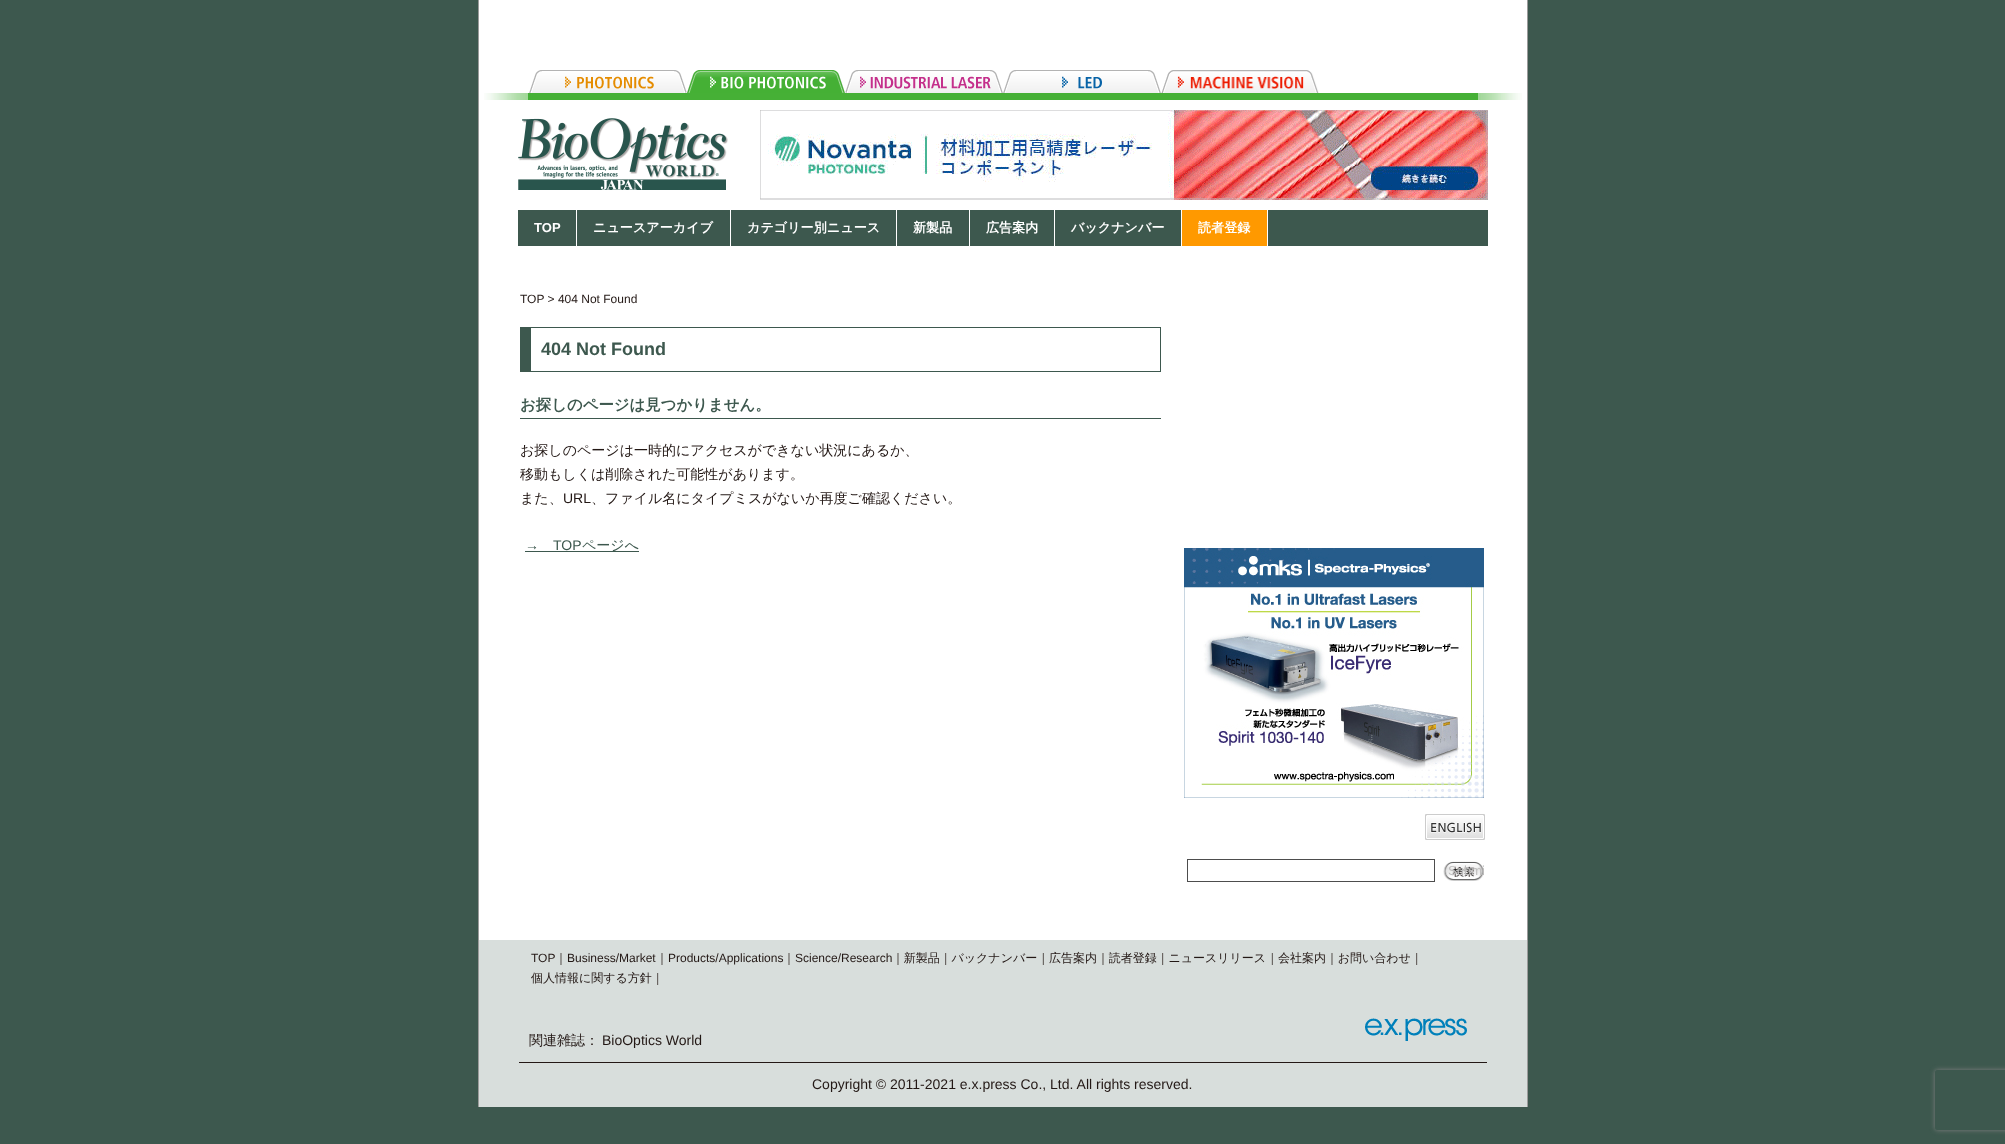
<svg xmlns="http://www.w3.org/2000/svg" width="2005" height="1144">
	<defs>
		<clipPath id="clip1"><rect x="1442" y="860" width="42" height="21" /></clipPath>
		<clipPath id="clip2"><path d="M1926 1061H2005V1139H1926ZM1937 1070H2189C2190 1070 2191 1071 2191 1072V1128C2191 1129 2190 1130 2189 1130H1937C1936 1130 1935 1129 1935 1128V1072C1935 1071 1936 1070 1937 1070Z" clip-rule="evenodd" /></clipPath>
	</defs>
	<rect width="100%" height="100%" fill="#3D584E" />
	<rect x="479" y="0" width="1048" height="940" fill="#FFFFFF" />
	<rect x="1527" y="0" width="1" height="1107" fill="#9B9B9B" />
	<rect x="478" y="0" width="1" height="1107" fill="#9B9B9B" />
	<image x="484" y="93" width="1038" height="7" href="assets/img1.png" />
	<image x="529" y="70" width="158" height="23" href="assets/img2.png" />
	<image x="687" y="70" width="158" height="23" href="assets/img3.png" />
	<image x="845" y="70" width="158" height="23" href="assets/img4.png" />
	<image x="1003" y="70" width="158" height="23" href="assets/img5.png" />
	<image x="1161" y="70" width="158" height="23" href="assets/img6.png" />
	<image x="518" y="118" width="210" height="72" href="assets/img7.png" />
	<image x="760" y="110" width="728" height="90" href="assets/img8.png" />
	<rect x="518" y="210" width="970" height="36" fill="#3D584E" />
	<rect x="576" y="210" width="1" height="36" fill="#FFFFFF" />
	<text x="534" y="232" font-family="Liberation Sans" font-size="13" font-weight="700" letter-spacing="0.1" fill="#FFFFFF">TOP</text>
	<rect x="730" y="210" width="1" height="36" fill="#FFFFFF" />
	<text x="593" y="232" font-family="WenQuanYi Zen Hei" font-size="13" font-weight="700" letter-spacing="0.1" fill="#FFFFFF">ニュースアーカイブ</text>
	<rect x="896" y="210" width="1" height="36" fill="#FFFFFF" />
	<text x="747" y="232" font-family="WenQuanYi Zen Hei" font-size="13" font-weight="700" letter-spacing="0.1" fill="#FFFFFF">カテゴリー別ニュース</text>
	<rect x="969" y="210" width="1" height="36" fill="#FFFFFF" />
	<text x="913" y="232" font-family="WenQuanYi Zen Hei" font-size="13" font-weight="700" letter-spacing="0.1" fill="#FFFFFF">新製品</text>
	<rect x="1054" y="210" width="1" height="36" fill="#FFFFFF" />
	<text x="986" y="232" font-family="WenQuanYi Zen Hei" font-size="13" font-weight="700" letter-spacing="0.1" fill="#FFFFFF">広告案内</text>
	<rect x="1181" y="210" width="1" height="36" fill="#FFFFFF" />
	<text x="1071" y="232" font-family="WenQuanYi Zen Hei" font-size="13" font-weight="700" letter-spacing="0.1" fill="#FFFFFF">バックナンバー</text>
	<rect x="1182" y="210" width="85" height="36" fill="#FF9900" />
	<rect x="1267" y="210" width="1" height="36" fill="#FFFFFF" />
	<text x="1198" y="232" font-family="WenQuanYi Zen Hei" font-size="13" font-weight="700" letter-spacing="0.1" fill="#FFFFFF">読者登録</text>
	<text x="520" y="303" font-family="Liberation Sans" font-size="12" fill="#231815">TOP &gt; 404 Not Found</text>
	<rect x="531" y="327" width="630" height="1" fill="#3D584E" />
	<rect x="1160" y="327" width="1" height="45" fill="#3D584E" />
	<rect x="531" y="371" width="630" height="1" fill="#3D584E" />
	<rect x="520" y="327" width="11" height="45" fill="#3D584E" />
	<text x="541" y="355" font-family="Liberation Sans" font-size="18" font-weight="700" fill="#3D584E">404 Not Found</text>
	<rect x="520" y="418" width="641" height="1" fill="#3D584E" />
	<text x="520" y="410" font-family="WenQuanYi Zen Hei" font-size="15.4" font-weight="700" fill="#3D584E">お探しのページは見つかりません。</text>
	<g font-family="WenQuanYi Zen Hei" font-size="14" font-weight="500" fill="#231815">
		<text x="520" y="455">お探しのページは一時的にアクセスができない状況にあるか、</text>
		<text x="520" y="479">移動もしくは削除された可能性があります。</text>
		<text x="520" y="503">また、</text>
	</g>
	<text x="563" y="503" font-family="Liberation Sans" font-size="14" fill="#231815">URL</text>
	<text x="591" y="503" font-family="WenQuanYi Zen Hei" font-size="14" font-weight="500" fill="#231815">、ファイル名にタイプミスがないか再度ご確認ください。</text>
	<text x="525" y="550" font-family="Liberation Sans" font-size="14" fill="#3D584E">→</text>
	<rect x="525" y="551" width="114" height="1" fill="#3D584E" />
	<text x="553" y="550" font-family="Liberation Sans" font-size="14" fill="#3D584E">TOP</text>
	<text x="582" y="550" font-family="WenQuanYi Zen Hei" font-size="14" font-weight="500" fill="#3D584E">ページへ</text>
	<image x="1184" y="548" width="300" height="250" href="assets/img9.png" />
	<image x="1425" y="814" width="60" height="26" href="assets/img10.png" />
	<rect x="1187.5" y="859.5" width="247" height="22" fill="none" stroke="#4D4D4D" />
	<image x="1443" y="861" width="41" height="20" href="assets/img11.png" />
	<g clip-path="url(#clip1)">
		<text x="1448" y="875" font-family="Liberation Sans" font-size="13" fill="#BEBDBD">Submi</text>
	</g>
	<rect x="479" y="940" width="1048" height="167" fill="#D8DEDC" />
	<text x="531" y="962" font-family="Liberation Sans" font-size="12" fill="#231815">TOP</text>
	<text x="555" y="962" font-family="WenQuanYi Zen Hei" font-size="12" font-weight="500" fill="#231815">｜</text>
	<text x="567" y="962" font-family="Liberation Sans" font-size="12" fill="#231815">Business/Market</text>
	<text x="656" y="962" font-family="WenQuanYi Zen Hei" font-size="12" font-weight="500" fill="#231815">｜</text>
	<text x="668" y="962" font-family="Liberation Sans" font-size="12" fill="#231815">Products/Applications</text>
	<text x="783" y="962" font-family="WenQuanYi Zen Hei" font-size="12" font-weight="500" fill="#231815">｜</text>
	<text x="795" y="962" font-family="Liberation Sans" font-size="12" fill="#231815">Science/Research</text>
	<g font-family="WenQuanYi Zen Hei" font-size="12" font-weight="500" fill="#231815">
		<text x="892" y="962">｜新製品｜バックナンバー｜広告案内｜読者登録｜ニュースリリース｜会社案内｜お問い合わせ｜</text>
		<text x="531" y="982">個人情報に関する方針｜</text>
	</g>
	<text x="529" y="1045" font-family="WenQuanYi Zen Hei" font-size="14" font-weight="500" fill="#231815">関連雑誌：</text>
	<text x="602" y="1045" font-family="Liberation Sans" font-size="14" fill="#231815">BioOptics World</text>
	<image x="1365" y="1018" width="102" height="23" href="assets/img12.png" />
	<rect x="519" y="1062" width="968" height="1" fill="#231815" />
	<text x="812" y="1089" font-family="Liberation Sans" font-size="14" fill="#231815">Copyright © 2011-2021 e.x.press Co., Ltd. All rights reserved.</text>
	<g clip-path="url(#clip2)">
		<rect x="1935" y="1070" width="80" height="60" rx="2" fill="#808080" filter="blur(2.5px)" />
	</g>
</svg>
